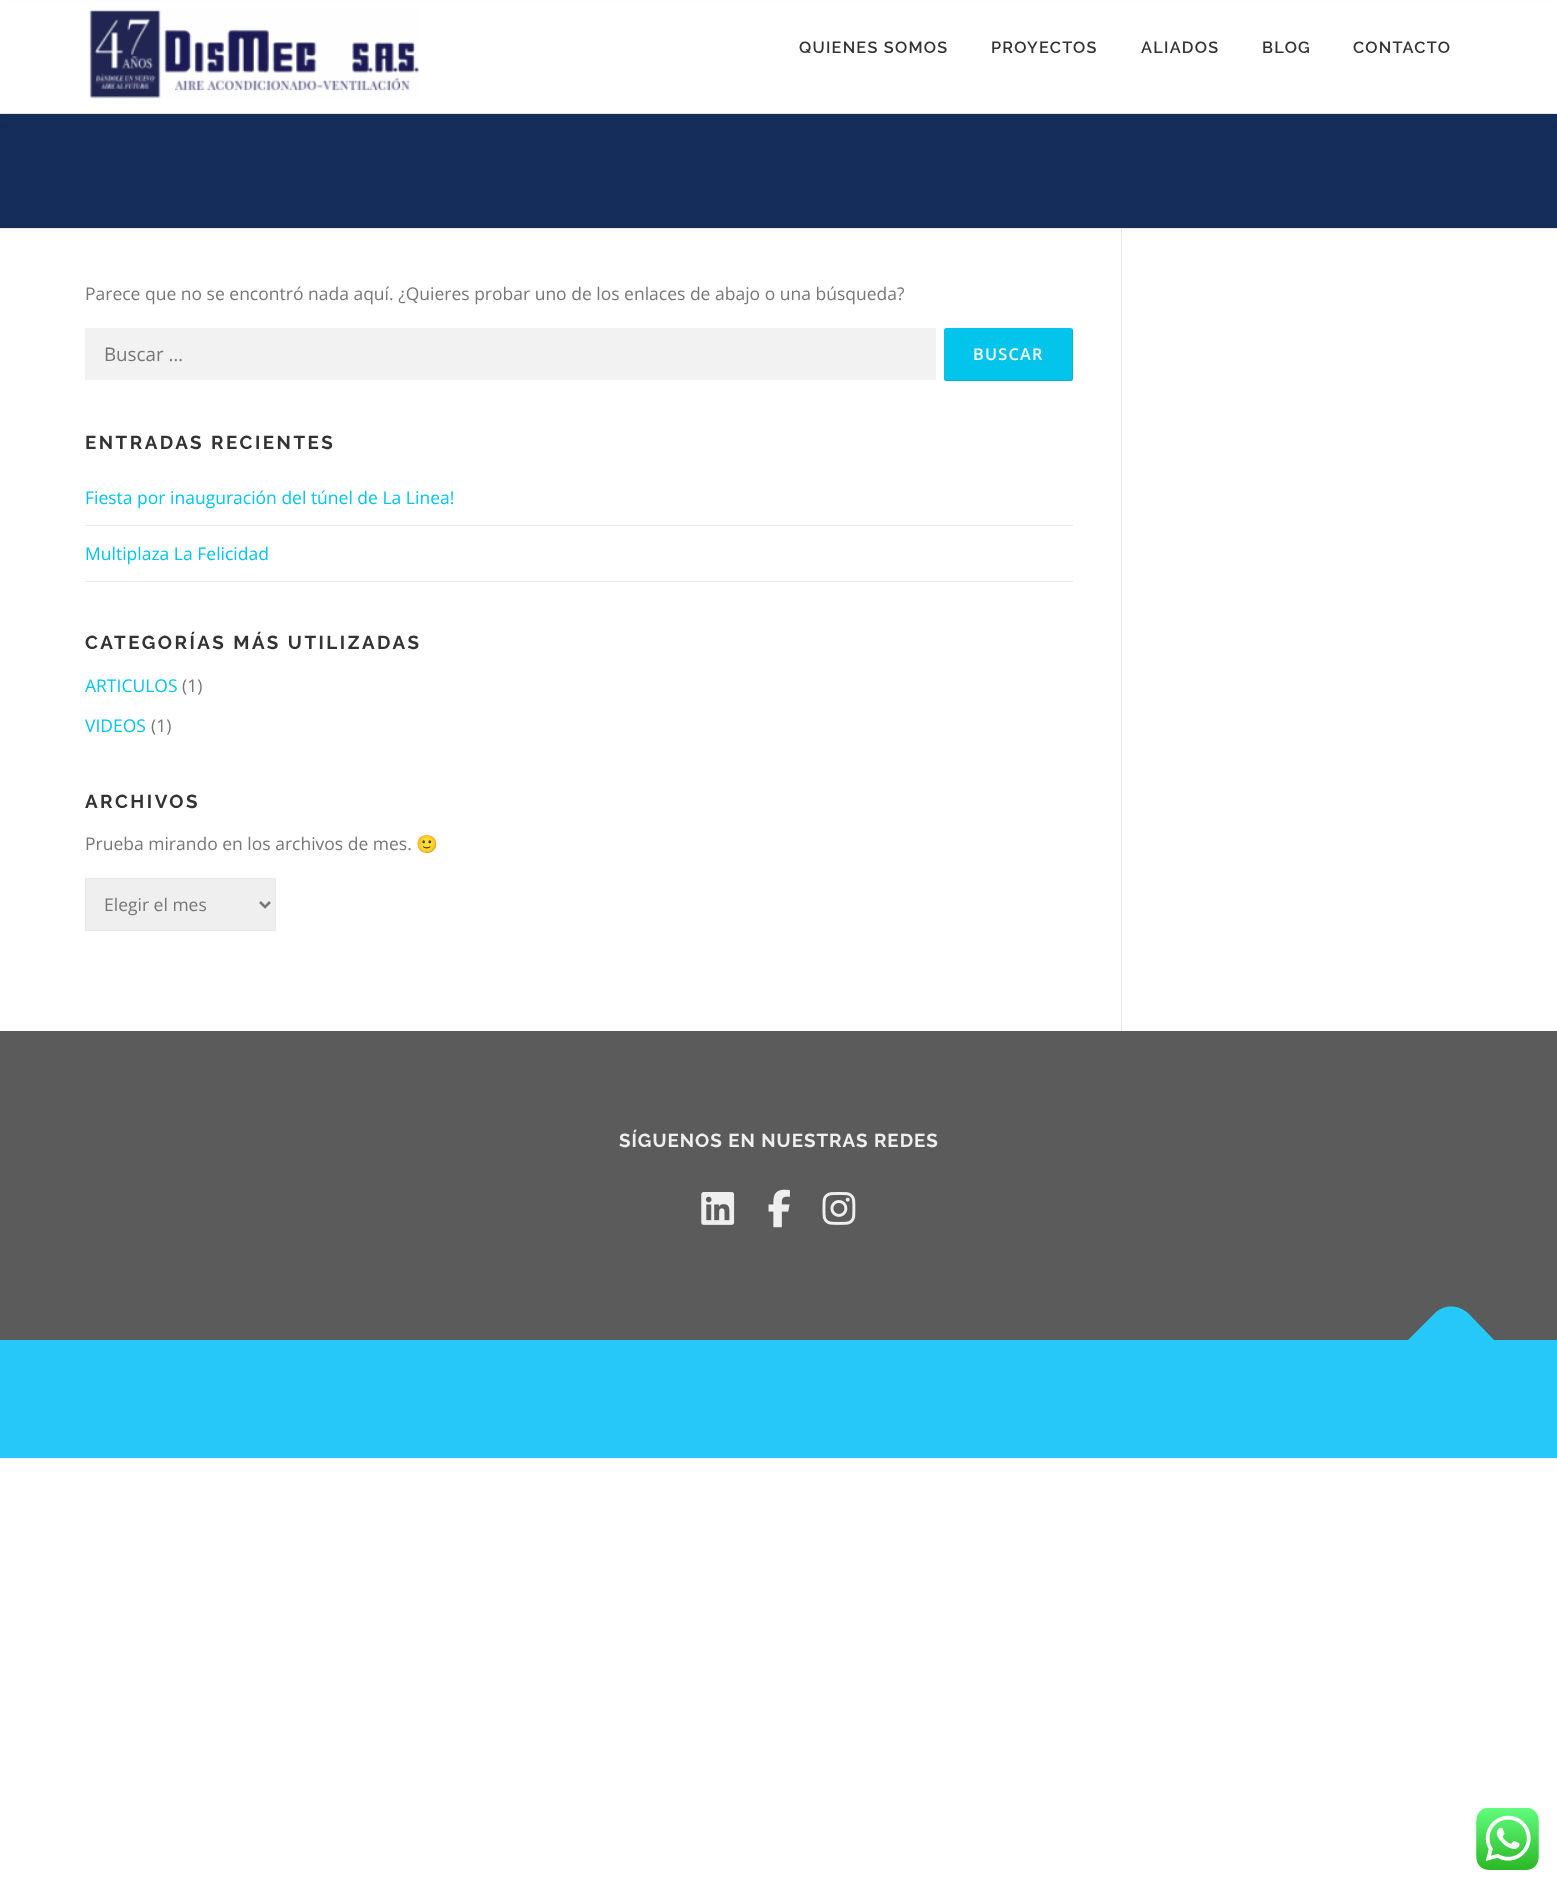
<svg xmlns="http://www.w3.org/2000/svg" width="1557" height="1888">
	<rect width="100%" height="100%" fill="#FFFFFF" />
	<rect x="0" y="113" width="1557" height="1" fill="#E9E9E9" />
	<rect x="0" y="114" width="1557" height="114" fill="#152D5B" />
	<rect x="0" y="6" width="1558" height="113" fill="#323232" fill-opacity="0.06" filter="blur(6px)" />
	<rect x="0" y="1" width="1557" height="112" fill="#FFFFFF" />
	<image x="89" y="9" width="331" height="90" href="assets/img1.png" />
	<g font-family="Raleway" font-size="16.25" font-weight="600" letter-spacing="1.25" fill="#333333">
		<text x="799" y="53">QUIENES SOMOS</text>
		<text x="991" y="53">PROYECTOS</text>
		<text x="1141" y="53">ALIADOS</text>
		<text x="1262" y="53">BLOG</text>
		<text x="1353" y="53">CONTACTO</text>
	</g>
	<rect x="0" y="228" width="1557" height="1" fill="#E9E9E9" />
	<rect x="1121" y="229" width="1" height="802" fill="#E9E9E9" />
	<text x="85" y="300" font-family="Open Sans" font-size="17.5" fill="#777777">Parece que no se encontró nada aquí. ¿Quieres probar uno de los enlaces de abajo o una búsqueda?</text>
	<rect x="85" y="328" width="851" height="52" fill="#F2F2F2" />
	<text x="104" y="361" font-family="Open Sans" font-size="18.75" fill="#777777">Buscar …</text>
	<rect x="944" y="328" width="129" height="53" rx="2.5" fill="#03C4EB" />
	<path d="M944 378C944 380 945 381 946 381H1070C1072 381 1073 380 1073 378V330C1073 330 1073 329 1072 328V378C1072 379 1071 380 1070 380H946C945 380 944 379 944 378Z" fill="#000000" fill-opacity="0.1" />
	<text x="973" y="360" font-family="Open Sans" font-size="16.25" font-weight="600" letter-spacing="1.25" fill="#FFFFFF">BUSCAR</text>
	<text x="85" y="449" font-family="Raleway" font-size="18.75" font-weight="700" letter-spacing="2.5" fill="#333333">ENTRADAS RECIENTES</text>
	<rect x="85" y="525" width="988" height="1" fill="#E9E9E9" />
	<text x="85" y="504" font-family="Open Sans" font-size="17.5" fill="#03C4EB">Fiesta por inauguración del túnel de La Linea!</text>
	<rect x="85" y="581" width="988" height="1" fill="#E9E9E9" />
	<text x="85" y="560" font-family="Open Sans" font-size="17.5" fill="#03C4EB">Multiplaza La Felicidad</text>
	<text x="85" y="649" font-family="Raleway" font-size="18.75" font-weight="700" letter-spacing="2.5" fill="#333333">CATEGORÍAS MÁS UTILIZADAS</text>
	<text x="85" y="692" font-family="Open Sans" font-size="17.5" fill="#03C4EB">ARTICULOS</text>
	<text x="182" y="692" font-family="Open Sans" font-size="17.5" fill="#777777">(1)</text>
	<text x="85" y="732" font-family="Open Sans" font-size="17.5" fill="#03C4EB">VIDEOS</text>
	<text x="151" y="732" font-family="Open Sans" font-size="17.5" fill="#777777">(1)</text>
	<text x="85" y="808" font-family="Raleway" font-size="18.75" font-weight="700" letter-spacing="2.5" fill="#333333">ARCHIVOS</text>
	<text x="85" y="850" font-family="Open Sans" font-size="17.5" fill="#777777">Prueba mirando en los archivos de mes.</text>
	<text x="416" y="850" font-family="Noto Color Emoji" font-size="17.5" fill="#777777">🙂</text>
	<rect x="85.5" y="878.5" width="190" height="52" fill="#EFEFEF" stroke="#E9E9E9" />
	<path d="M260 902L265 907L270 902" fill="none" stroke="#777777" stroke-width="2.5" />
	<text x="104" y="911" font-family="Open Sans" font-size="17.5" fill="#777777">Elegir el mes</text>
	<rect x="0" y="1031" width="1557" height="309" fill="#5B5B5B" />
	<text x="619" y="1147" font-family="Raleway" font-size="18.75" font-weight="700" letter-spacing="1" fill="#EFEFEF">SÍGUENOS EN NUESTRAS REDES</text>
	<image x="701" y="1192" width="34" height="33" href="assets/img2.png" />
	<image x="768" y="1189" width="22" height="39" href="assets/img3.png" />
	<image x="822" y="1192" width="34" height="33" href="assets/img4.png" />
	<rect x="0" y="1340" width="1557" height="118" fill="#25C8F9" />
	<path d="M1407 1341L1434 1314C1443 1304 1459 1304 1469 1314L1495 1341L1451 1385Z" fill="#25C8F9" />
	<image x="1476" y="1808" width="63" height="62" href="assets/img5.png" />
</svg>
